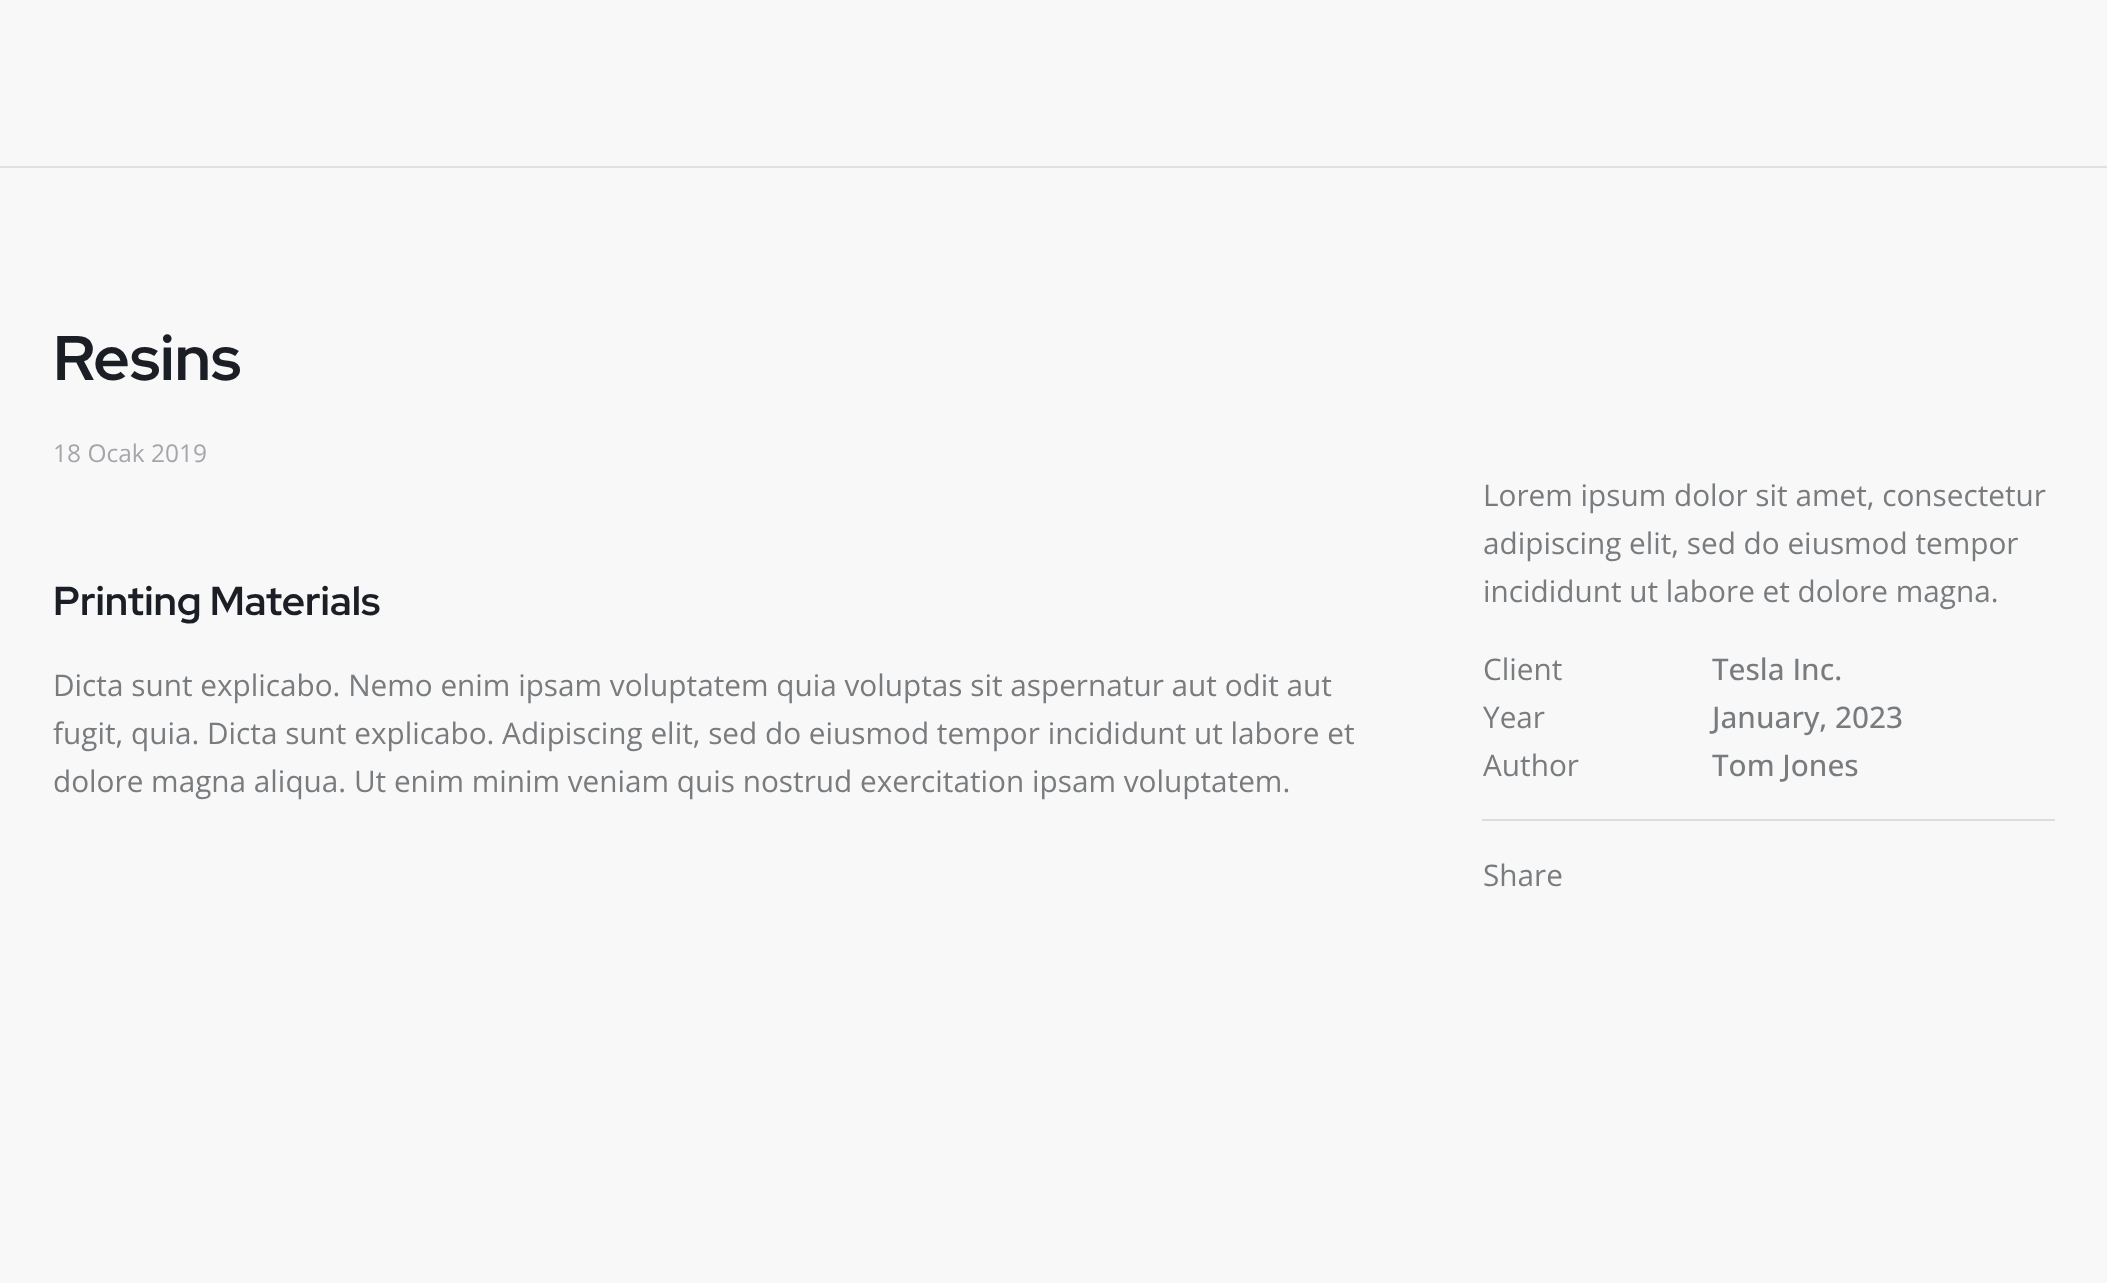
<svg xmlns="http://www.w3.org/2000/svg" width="2107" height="1283">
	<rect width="100%" height="100%" fill="#F8F8F8" />
	<rect x="0" y="166" width="2107" height="2" fill="#E1DFDF" />
	<text x="53" y="380" font-family="Red Hat Display" font-size="63" font-weight="700" fill="#1B1E25">Resins</text>
	<text x="53" y="462" font-family="Open Sans" font-size="24.5" fill="#A5A6AA">18 Ocak 2019</text>
	<text x="53" y="615" font-family="Red Hat Display" font-size="40.25" font-weight="700" fill="#1B1E25">Printing Materials</text>
	<g font-family="Open Sans" font-size="29.75" fill="#797C7F">
		<text x="53" y="696">Dicta sunt explicabo. Nemo enim ipsam voluptatem quia voluptas sit aspernatur aut odit aut</text>
		<text x="53" y="744">fugit, quia. Dicta sunt explicabo. Adipiscing elit, sed do eiusmod tempor incididunt ut labore et</text>
		<text x="53" y="792">dolore magna aliqua. Ut enim minim veniam quis nostrud exercitation ipsam voluptatem.</text>
		<text x="1483" y="506">Lorem ipsum dolor sit amet, consectetur</text>
		<text x="1483" y="554">adipiscing elit, sed do eiusmod tempor</text>
		<text x="1483" y="602">incididunt ut labore et dolore magna.</text>
		<text x="1483" y="680">Client</text>
	</g>
	<text x="1712" y="680" font-family="Open Sans" font-size="29.75" font-weight="500" fill="#797C7F">Tesla Inc.</text>
	<text x="1483" y="728" font-family="Open Sans" font-size="29.75" fill="#797C7F">Year</text>
	<text x="1712" y="728" font-family="Open Sans" font-size="29.75" font-weight="500" fill="#797C7F">January, 2023</text>
	<text x="1483" y="776" font-family="Open Sans" font-size="29.75" fill="#797C7F">Author</text>
	<text x="1712" y="776" font-family="Open Sans" font-size="29.75" font-weight="500" fill="#797C7F">Tom Jones</text>
	<rect x="1482" y="819" width="573" height="2" fill="#DDDDDD" />
	<text x="1483" y="886" font-family="Open Sans" font-size="29.75" fill="#797C7F">Share</text>
</svg>
